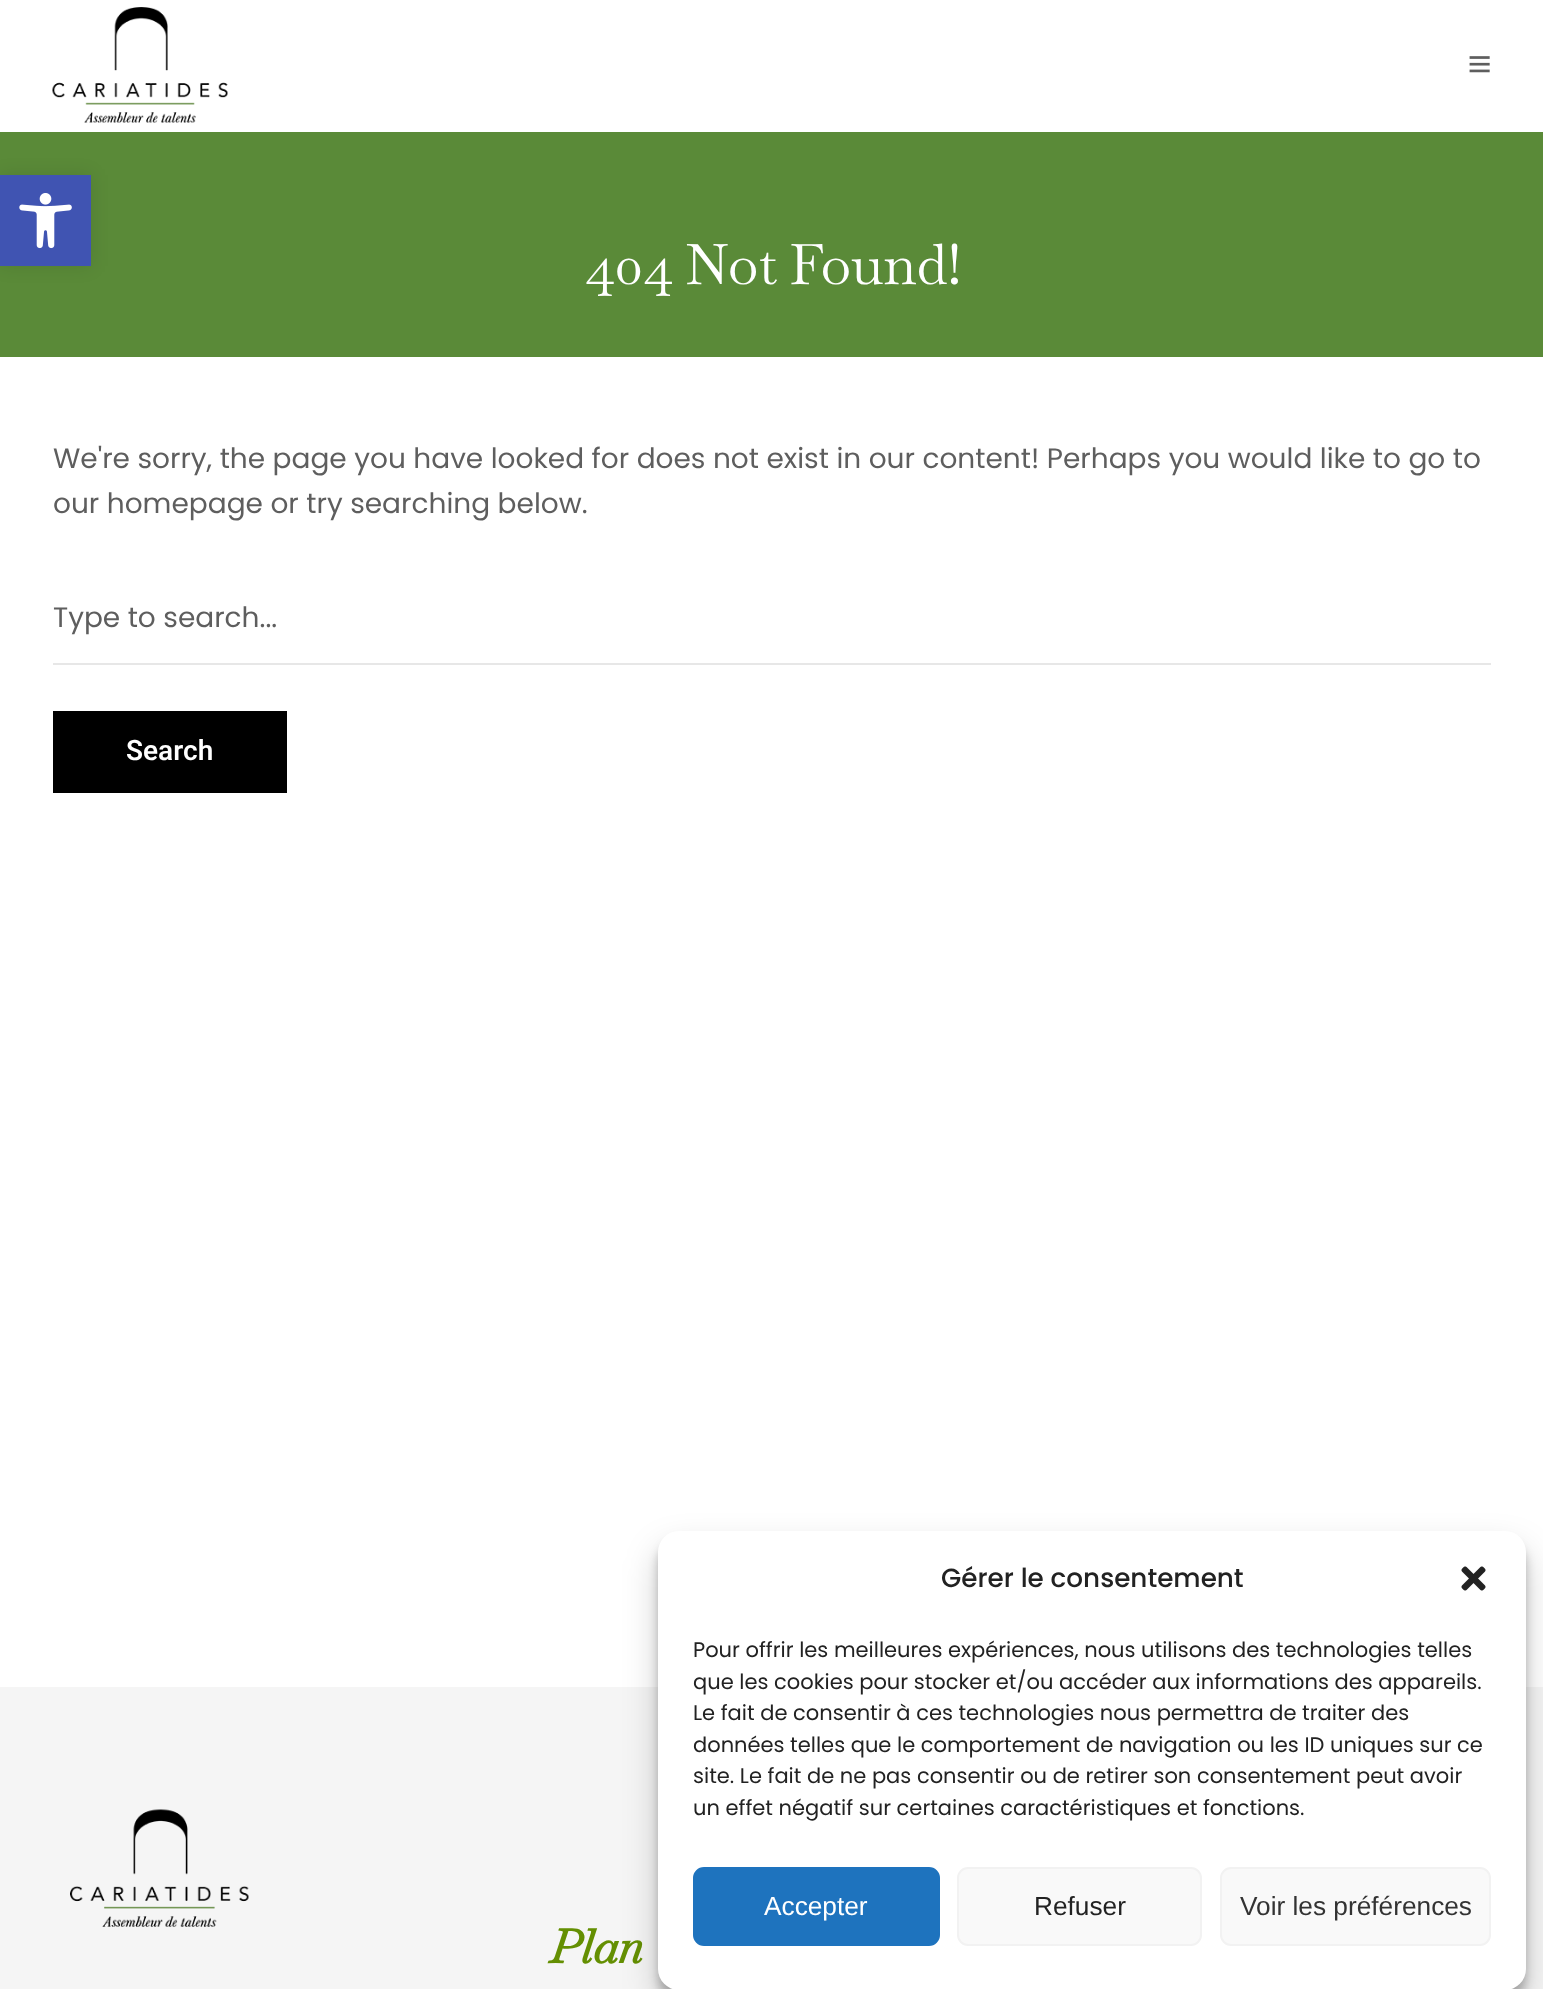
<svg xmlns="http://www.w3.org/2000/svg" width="1543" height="1989">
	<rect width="100%" height="100%" fill="#FFFFFF" />
	<rect x="0" y="132" width="1543" height="225" fill="#5A8A38" />
	<rect x="0" y="175" width="91" height="91" fill="#000000" fill-opacity="0.1" filter="blur(9px)" />
	<rect x="0" y="175" width="91" height="91" fill="#4054B2" />
	<image x="19" y="193" width="53" height="56" href="assets/img1.png" />
	<image x="52" y="7" width="176" height="116" href="assets/img2.png" />
	<image x="1469" y="56" width="21" height="17" href="assets/img3.png" />
	<text x="584" y="284" word-spacing="-3" font-family="Baskervville" font-size="56" fill="#FFFFFF">404 Not Found!</text>
	<g font-family="Poppins" font-size="28" fill="#5E5E5E">
		<text x="53" y="468">We're sorry, the page you have looked for does not exist in our content! Perhaps you would like to go to</text>
		<text x="53" y="513">our homepage or try searching below.</text>
	</g>
	<rect x="53" y="663" width="1438" height="2" fill="#E7E7E7" />
	<text x="53" y="627" font-family="Poppins" font-size="28" fill="#5E5E5E">Type to search...</text>
	<rect x="53" y="711" width="234" height="82" fill="#000000" />
	<text x="126" y="760" font-family="Heebo" font-size="28" font-weight="600" fill="#FFFFFF">Search</text>
	<rect x="0" y="1687" width="1543" height="302" fill="#F5F5F5" />
	<image x="70" y="1809" width="179" height="118" href="assets/img4.png" />
	<text x="549" y="1963" font-family="Baskervville" font-size="47" font-weight="700" font-style="italic" fill="#648F02">Plan</text>
	<rect x="658" y="1542" width="868" height="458" rx="21" fill="#000000" fill-opacity="0.23" filter="blur(5px)" />
	<rect x="658" y="1549" width="868" height="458" rx="21" fill="#000000" fill-opacity="0.19" filter="blur(17.5px)" />
	<rect x="658" y="1531" width="868" height="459" rx="21" fill="#FFFFFF" />
	<text x="941" y="1587" font-family="Poppins" font-size="26.25" font-weight="500" fill="#222222">Gérer le consentement</text>
	<image x="1461" y="1566" width="25" height="25" href="assets/img5.png" />
	<g font-family="Poppins" font-size="21" fill="#222222">
		<text x="693" y="1657">Pour offrir les meilleures expériences, nous utilisons des technologies telles</text>
		<text x="693" y="1689">que les cookies pour stocker et/ou accéder aux informations des appareils.</text>
		<text x="693" y="1720">Le fait de consentir à ces technologies nous permettra de traiter des</text>
		<text x="693" y="1752">données telles que le comportement de navigation ou les ID uniques sur ce</text>
		<text x="693" y="1783">site. Le fait de ne pas consentir ou de retirer son consentement peut avoir</text>
		<text x="693" y="1815">un effet négatif sur certaines caractéristiques et fonctions.</text>
	</g>
	<rect x="694" y="1868" width="245" height="77" rx="10" fill="#1E73BE" stroke="#1E73BE" stroke-width="2" />
	<text x="764" y="1915" font-family="Liberation Sans" font-size="26.25" fill="#FFFFFF">Accepter</text>
	<rect x="958" y="1868" width="243" height="77" rx="10" fill="#F9F9F9" stroke="#F2F2F2" stroke-width="2" />
	<text x="1034" y="1915" font-family="Liberation Sans" font-size="26.25" fill="#222222">Refuser</text>
	<rect x="1221" y="1868" width="269" height="77" rx="10" fill="#F9F9F9" stroke="#F2F2F2" stroke-width="2" />
	<text x="1240" y="1915" font-family="Liberation Sans" font-size="26.25" fill="#333333">Voir les préférences</text>
</svg>
